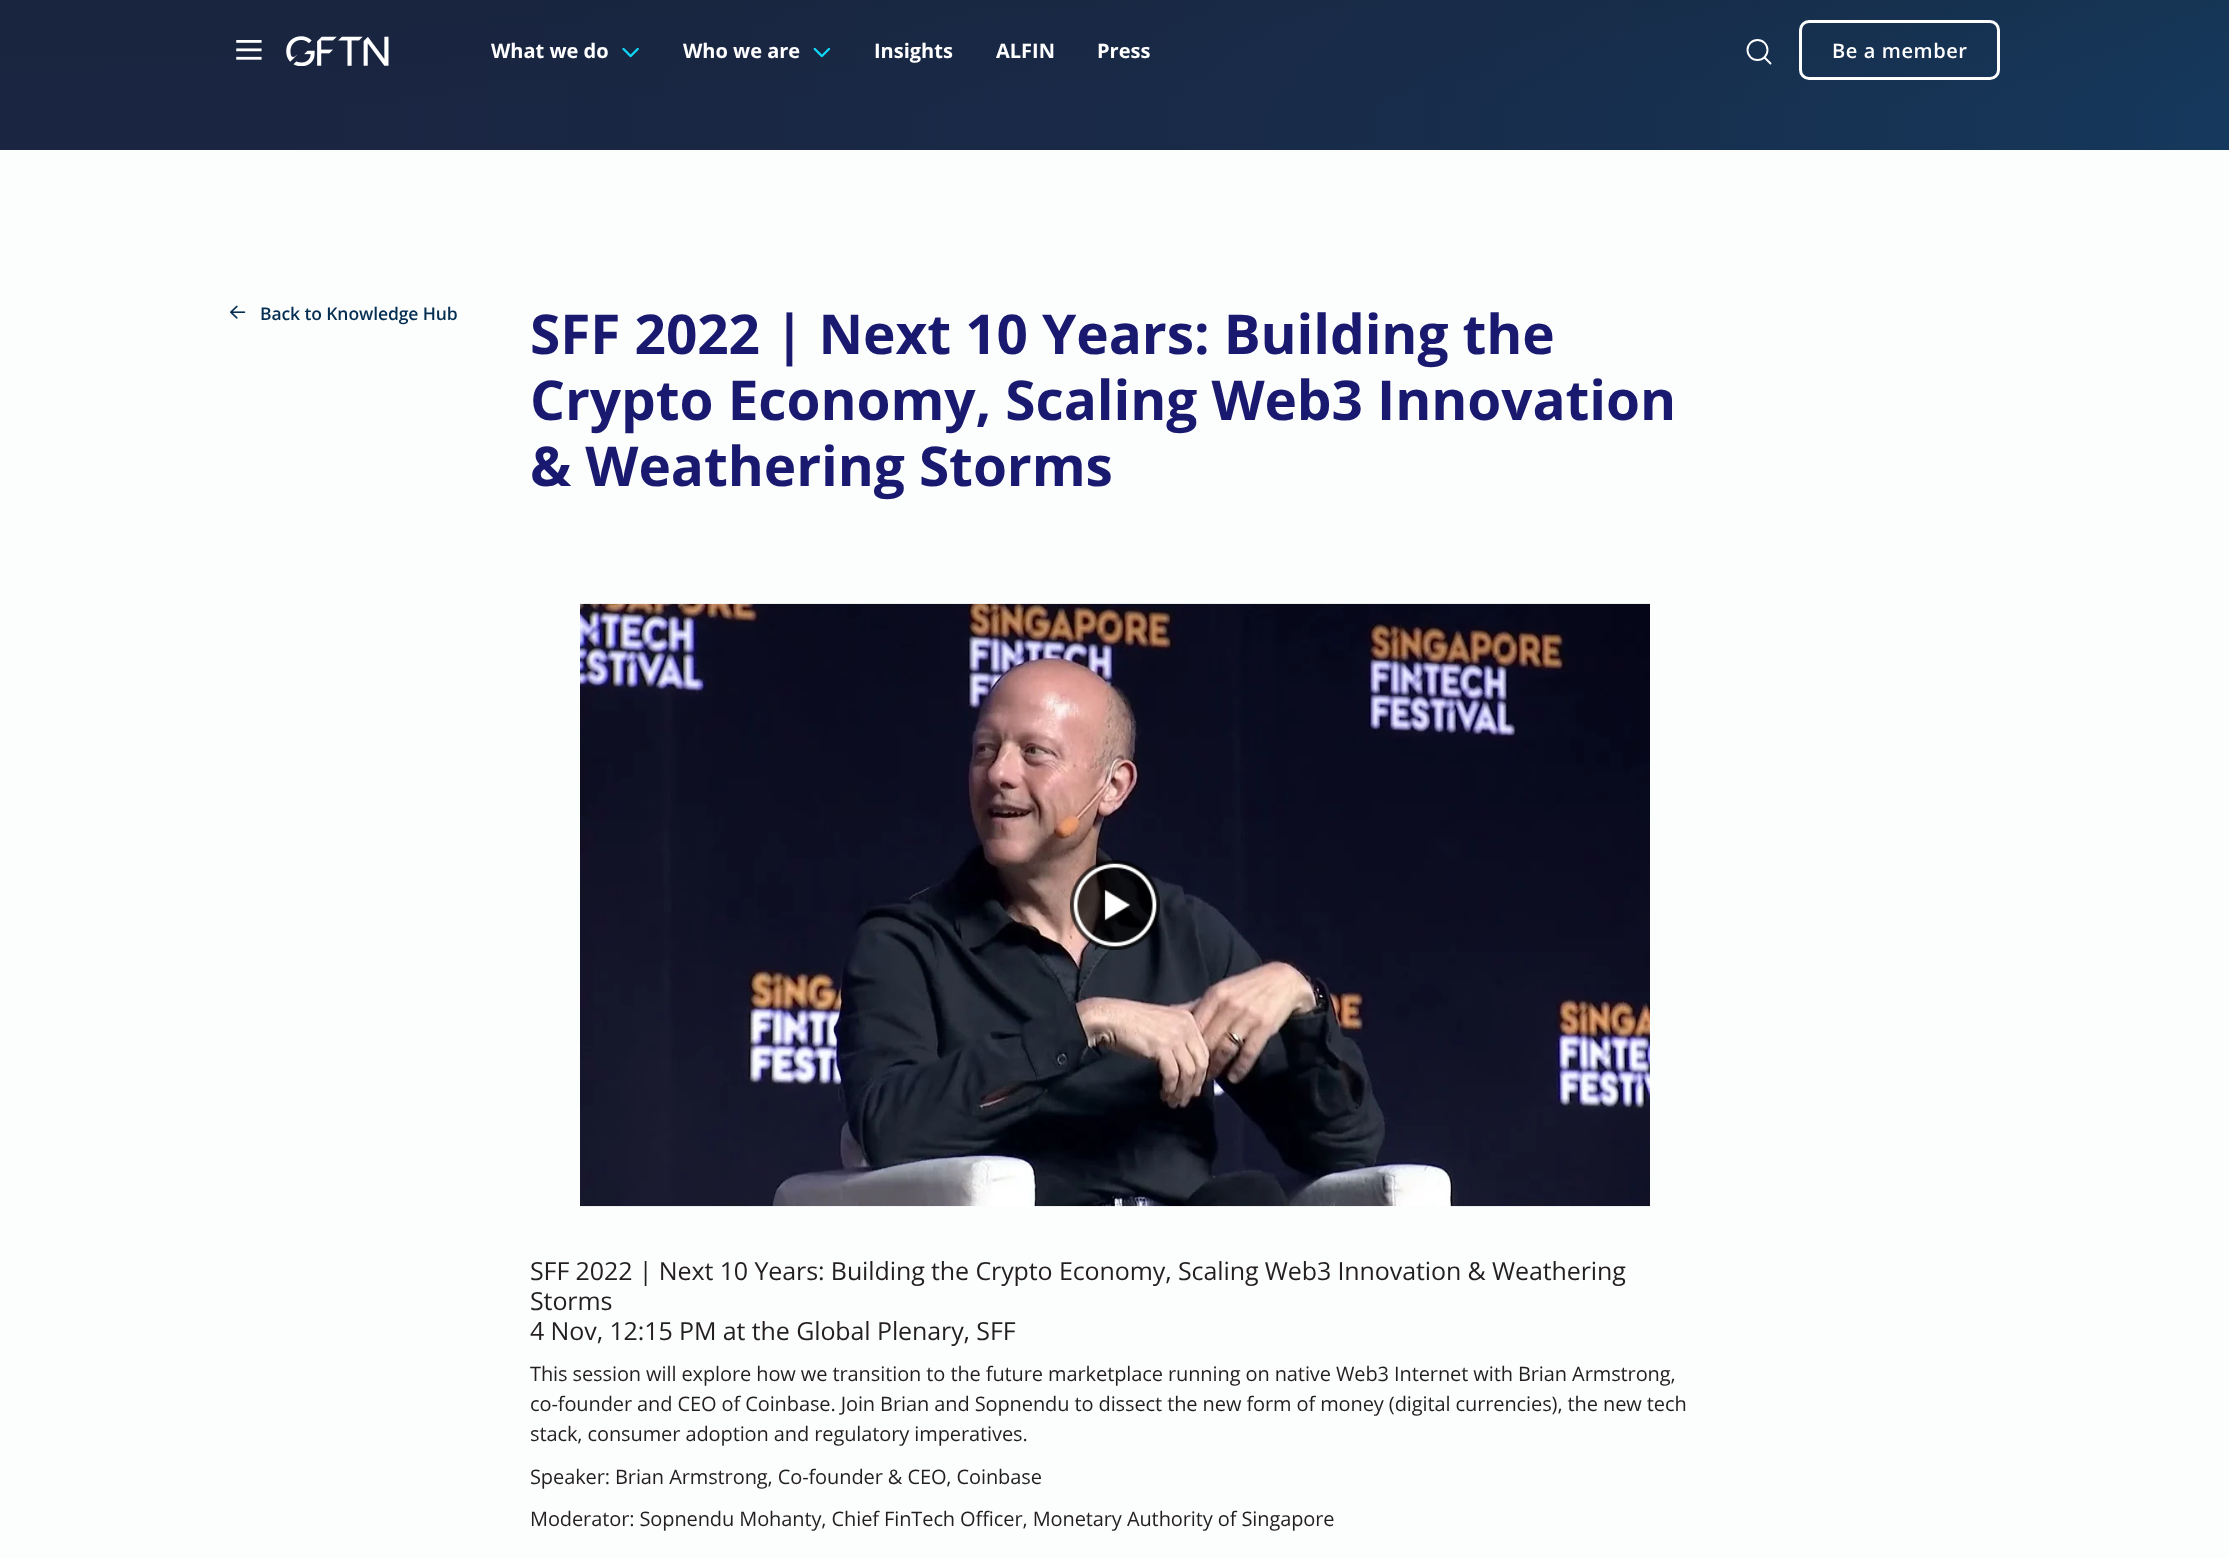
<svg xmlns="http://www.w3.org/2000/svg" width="2229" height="1558">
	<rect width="100%" height="100%" fill="#FCFDFD" />
	<image x="0" y="0" width="2229" height="150" href="assets/img5.png" />
	<image x="236" y="40" width="26" height="20" href="assets/img1.png" />
	<image x="286" y="36" width="103" height="30" href="assets/img2.png" />
	<image x="622" y="48" width="17" height="10" href="assets/img3.png" />
	<text x="491" y="58" font-family="Open Sans" font-size="20" font-weight="700" fill="#FFFFFF">What we do</text>
	<image x="813" y="48" width="18" height="10" href="assets/img4.png" />
	<g font-family="Open Sans" font-size="20" font-weight="700" fill="#FFFFFF">
		<text x="683" y="58">Who we are</text>
		<text x="874" y="58">Insights</text>
		<text x="996" y="58">ALFIN</text>
		<text x="1097" y="58">Press</text>
	</g>
	<circle cx="1757.5" cy="50" r="10" fill="none" stroke="#FFFFFF" stroke-width="1.9" />
	<path d="M1764.5 57.5L1770.5 63.5" fill="none" stroke="#FFFFFF" stroke-width="1.9" stroke-linecap="round" stroke-linejoin="round" />
	<rect x="1800.5" y="21.5" width="198" height="57" rx="8.5" fill="none" stroke="#FFFFFF" stroke-width="3" />
	<text x="1832" y="58" font-family="Open Sans" font-size="20" font-weight="600" letter-spacing="0.6" fill="#FFFFFF">Be a member</text>
	<image x="230" y="305" width="16" height="14" href="assets/img6.png" />
	<text x="260" y="320" font-family="Open Sans" font-size="17.5" font-weight="600" letter-spacing="-0.1" fill="#042E52">Back to Knowledge Hub</text>
	<g font-family="Open Sans" font-size="55" font-weight="700" letter-spacing="-0.1" fill="#191970">
		<text x="530" y="354">SFF 2022 | Next 10 Years: Building the</text>
		<text x="530" y="420">Crypto Economy, Scaling Web3 Innovation</text>
		<text x="530" y="486">&amp; Weathering Storms</text>
	</g>
	<image x="580" y="603" width="1070" height="604" href="assets/img7.png" />
	<image x="1070" y="860" width="90" height="90" href="assets/img8.png" />
	<g font-family="Open Sans" font-size="25" letter-spacing="-0.1" fill="#231F20">
		<text x="530" y="1280">SFF 2022 | Next 10 Years: Building the Crypto Economy, Scaling Web3 Innovation &amp; Weathering</text>
		<text x="530" y="1310">Storms</text>
		<text x="530" y="1340">4 Nov, 12:15 PM at the Global Plenary, SFF</text>
	</g>
	<g font-family="Open Sans" font-size="20" letter-spacing="-0.1" fill="#231F20">
		<text x="530" y="1381">This session will explore how we transition to the future marketplace running on native Web3 Internet with Brian Armstrong,</text>
		<text x="530" y="1411">co-founder and CEO of Coinbase. Join Brian and Sopnendu to dissect the new form of money (digital currencies), the new tech</text>
		<text x="530" y="1441">stack, consumer adoption and regulatory imperatives.</text>
		<text x="530" y="1484">Speaker: Brian Armstrong, Co-founder &amp; CEO, Coinbase</text>
		<text x="530" y="1526">Moderator: Sopnendu Mohanty, Chief FinTech Officer, Monetary Authority of Singapore</text>
	</g>
</svg>
